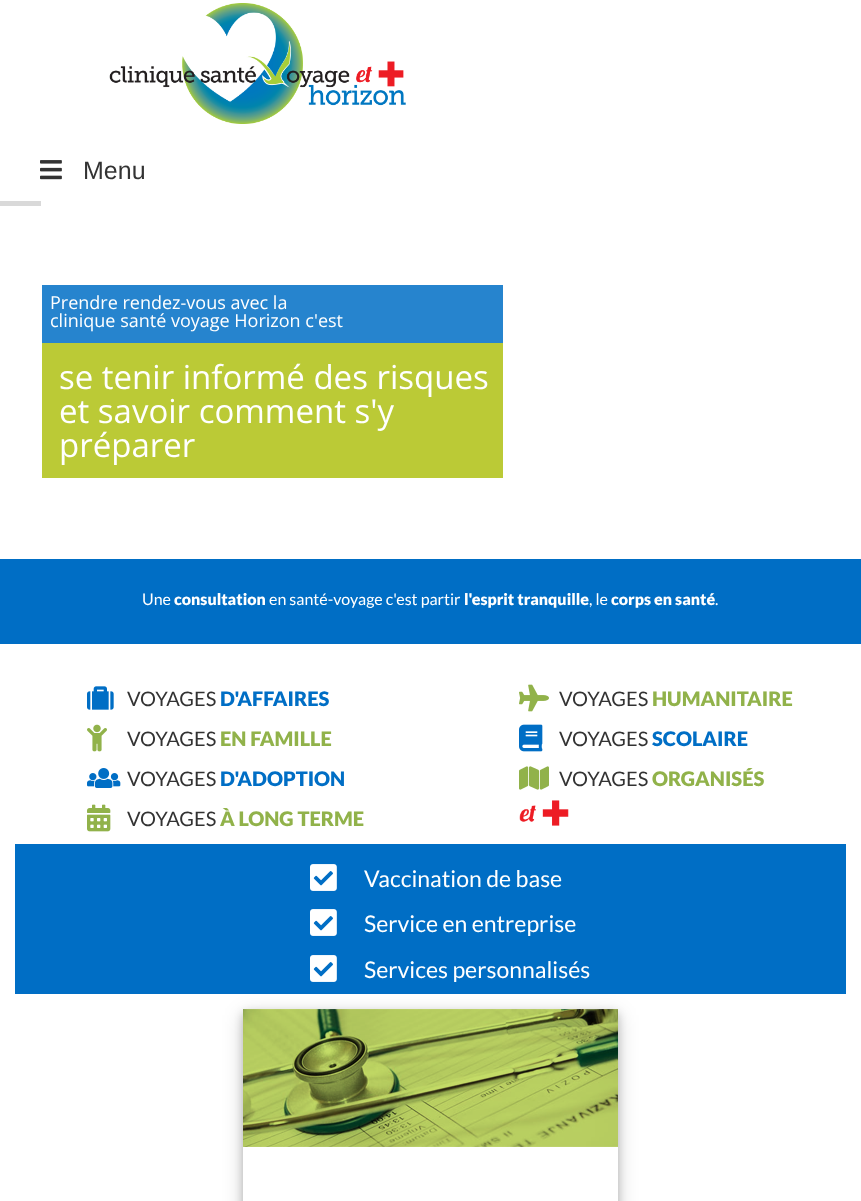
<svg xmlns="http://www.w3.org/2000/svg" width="861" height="1201">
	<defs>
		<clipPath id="clip1"><path d="M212 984H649V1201H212ZM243 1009H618V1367H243Z" clip-rule="evenodd" /></clipPath>
		<clipPath id="clip2"><path d="M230 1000H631V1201H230ZM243 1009H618V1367H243Z" clip-rule="evenodd" /></clipPath>
	</defs>
	<rect width="100%" height="100%" fill="#FFFFFF" />
	<image x="109" y="3" width="297" height="121" href="assets/img1.png" />
	<image x="40" y="160" width="22" height="20" href="assets/img2.png" />
	<text x="83" y="179" font-family="Liberation Sans" font-size="25" fill="#333333">Menu</text>
	<rect x="0" y="201" width="41" height="5" fill="#D9D9D9" />
	<rect x="42" y="285" width="461" height="58" fill="#2684CE" />
	<g font-family="Open Sans" font-size="18" fill="#FFFFFF">
		<text x="50" y="309">Prendre rendez-vous avec la</text>
		<text x="50" y="327">clinique santé voyage Horizon c'est</text>
	</g>
	<rect x="42" y="343" width="461" height="135" fill="#BBCA36" />
	<g font-family="Open Sans" font-size="33" fill="#FFFFFF">
		<text x="59" y="389">se tenir informé des risques</text>
		<text x="59" y="423">et savoir comment s'y</text>
		<text x="59" y="457">préparer</text>
	</g>
	<rect x="0" y="559" width="861" height="85" fill="#006EC5" />
	<text x="142" y="605" font-family="Lato" font-size="16" fill="#FFFFFF">Une</text>
	<text x="174" y="605" font-family="Lato" font-size="16" font-weight="900" fill="#FFFFFF">consultation</text>
	<text x="269" y="605" font-family="Lato" font-size="16" fill="#FFFFFF">en santé-voyage c'est partir</text>
	<text x="464" y="605" font-family="Lato" font-size="16" font-weight="900" fill="#FFFFFF">l'esprit tranquille</text>
	<text x="589" y="605" font-family="Lato" font-size="16" fill="#FFFFFF">, le</text>
	<text x="611" y="605" font-family="Lato" font-size="16" font-weight="900" fill="#FFFFFF">corps en santé</text>
	<text x="715" y="605" font-family="Lato" font-size="16" fill="#FFFFFF">.</text>
	<image x="87" y="686" width="27" height="24" href="assets/img3.png" />
	<text x="127" y="706" font-family="Lato" font-size="20" fill="#333333">VOYAGES</text>
	<text x="220" y="706" font-family="Lato" font-size="20" font-weight="900" fill="#006EC5">D'AFFAIRES</text>
	<image x="87" y="724" width="20" height="28" href="assets/img4.png" />
	<text x="127" y="746" font-family="Lato" font-size="20" fill="#333333">VOYAGES</text>
	<text x="220" y="746" font-family="Lato" font-size="20" font-weight="900" fill="#91B24A">EN FAMILLE</text>
	<image x="87" y="768" width="34" height="20" href="assets/img5.png" />
	<text x="127" y="786" font-family="Lato" font-size="20" fill="#333333">VOYAGES</text>
	<text x="220" y="786" font-family="Lato" font-size="20" font-weight="900" fill="#006EC5">D'ADOPTION</text>
	<image x="87" y="804" width="24" height="28" href="assets/img6.png" />
	<text x="127" y="826" font-family="Lato" font-size="20" fill="#333333">VOYAGES</text>
	<text x="220" y="826" font-family="Lato" font-size="20" font-weight="900" fill="#91B24A">À LONG TERME</text>
	<image x="519" y="684" width="30" height="28" href="assets/img7.png" />
	<text x="559" y="706" font-family="Lato" font-size="20" fill="#333333">VOYAGES</text>
	<text x="652" y="706" font-family="Lato" font-size="20" font-weight="900" fill="#91B24A">HUMANITAIRE</text>
	<image x="519" y="724" width="24" height="28" href="assets/img8.png" />
	<text x="559" y="746" font-family="Lato" font-size="20" fill="#333333">VOYAGES</text>
	<text x="652" y="746" font-family="Lato" font-size="20" font-weight="900" fill="#006EC5">SCOLAIRE</text>
	<image x="519" y="766" width="30" height="24" href="assets/img9.png" />
	<text x="559" y="786" font-family="Lato" font-size="20" fill="#333333">VOYAGES</text>
	<text x="652" y="786" font-family="Lato" font-size="20" font-weight="900" fill="#91B24A">ORGANISÉS</text>
	<image x="519" y="800" width="50" height="26" href="assets/img10.png" />
	<rect x="15" y="844" width="831" height="150" fill="#006EC5" />
	<image x="310" y="864" width="27" height="27" href="assets/img11.png" />
	<text x="364" y="887" font-family="Lato" font-size="23" fill="#FFFFFF">Vaccination de base</text>
	<image x="310" y="909" width="27" height="27" href="assets/img11.png" />
	<text x="364" y="932" font-family="Lato" font-size="23" fill="#FFFFFF">Service en entreprise</text>
	<image x="310" y="955" width="27" height="27" href="assets/img11.png" />
	<text x="364" y="978" font-family="Lato" font-size="23" fill="#FFFFFF">Services personnalisés</text>
	<g clip-path="url(#clip1)">
		<rect x="243" y="1015" width="375" height="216" fill="#000000" fill-opacity="0.19" filter="blur(10px)" />
	</g>
	<g clip-path="url(#clip2)">
		<rect x="243" y="1013" width="375" height="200" fill="#000000" fill-opacity="0.2" filter="blur(4px)" />
	</g>
	<image x="243" y="1009" width="375" height="138" href="assets/img12.png" />
</svg>
